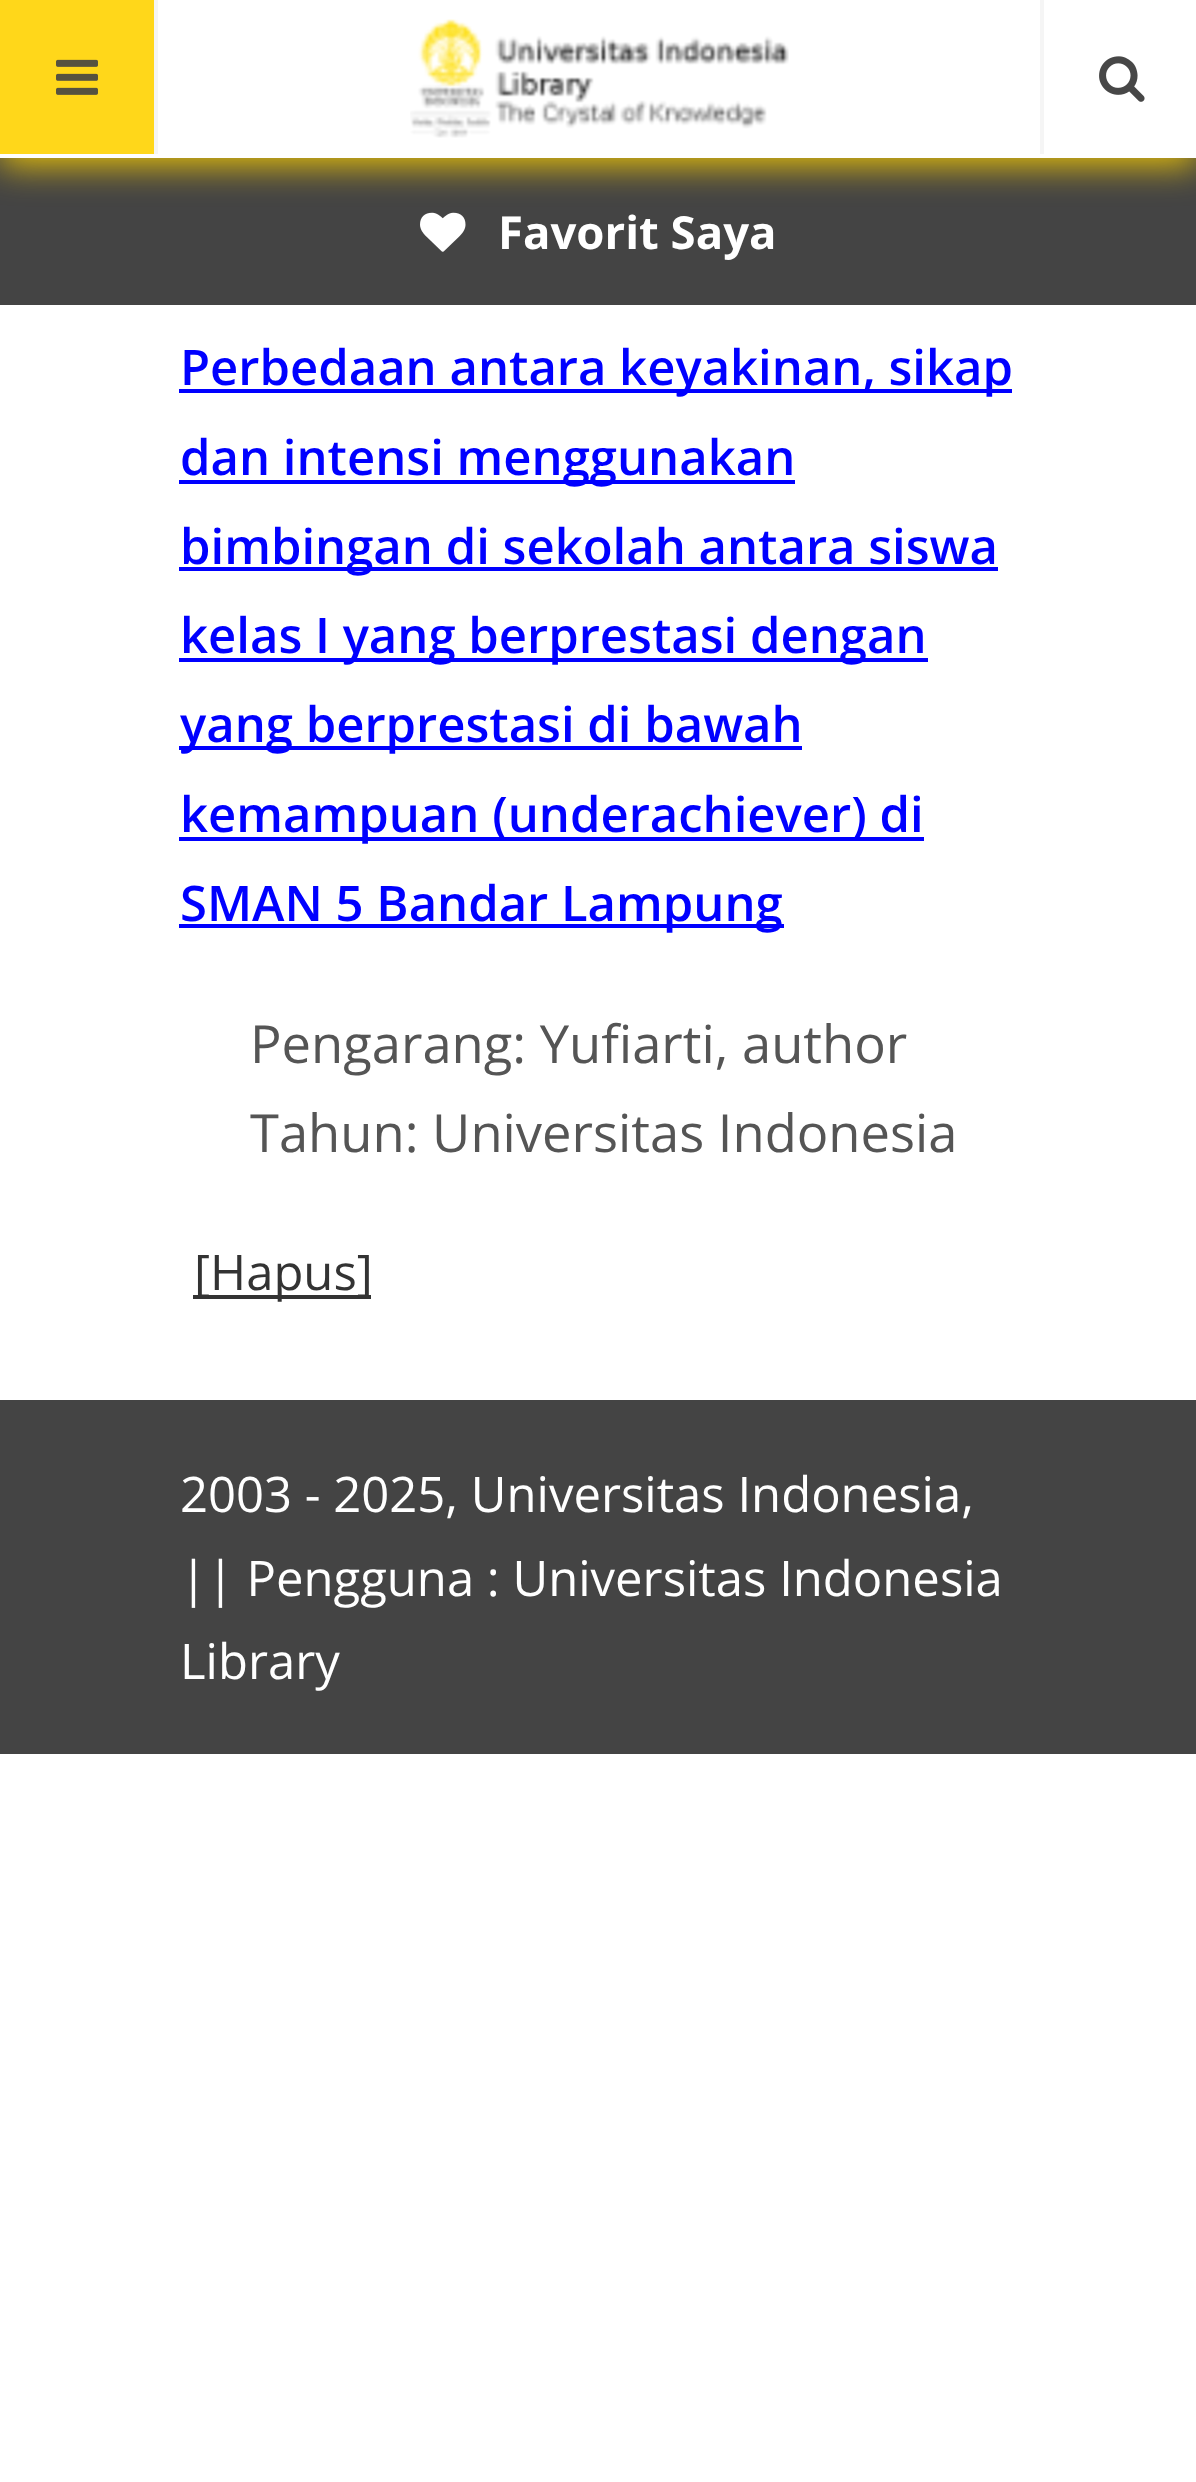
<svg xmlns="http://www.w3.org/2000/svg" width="1196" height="2482">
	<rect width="100%" height="100%" fill="#FFFFFF" />
	<rect x="0" y="158" width="1196" height="147" fill="#444444" />
	<image x="420" y="212" width="46" height="40" href="assets/img4.png" />
	<rect x="0" y="7" width="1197" height="158" fill="#FFD200" fill-opacity="0.9" filter="blur(17.5px)" />
	<rect x="0" y="0" width="1196" height="158" fill="#FFFFFF" />
	<rect x="0" y="0" width="154" height="154" fill="#FFD71A" />
	<rect x="154" y="0" width="4" height="154" fill="#F5F5F5" />
	<image x="56" y="59" width="42" height="36" href="assets/img1.png" />
	<image x="410" y="19" width="379" height="119" href="assets/img2.png" />
	<rect x="1040" y="0" width="4" height="154" fill="#F5F5F5" />
	<image x="1099" y="56" width="46" height="46" href="assets/img3.png" />
	<text x="498" y="249" font-family="Open Sans" font-size="45.5" font-weight="700" fill="#FFFFFF">Favorit Saya</text>
	<rect x="179" y="389" width="833" height="4" fill="#0000FF" />
	<text x="180" y="385" font-family="Open Sans" font-size="49" font-weight="600" fill="#0000FF">Perbedaan antara keyakinan, sikap</text>
	<rect x="179" y="480" width="616" height="4" fill="#0000FF" />
	<text x="180" y="475" font-family="Open Sans" font-size="49" font-weight="600" fill="#0000FF">dan intensi menggunakan</text>
	<rect x="179" y="567" width="819" height="4" fill="#0000FF" />
	<text x="180" y="564" font-family="Open Sans" font-size="49" font-weight="600" fill="#0000FF">bimbingan di sekolah antara siswa</text>
	<rect x="179" y="658" width="749" height="4" fill="#0000FF" />
	<text x="180" y="653" font-family="Open Sans" font-size="49" font-weight="600" fill="#0000FF">kelas I yang berprestasi dengan</text>
	<rect x="179" y="746" width="623" height="4" fill="#0000FF" />
	<text x="180" y="742" font-family="Open Sans" font-size="49" font-weight="600" fill="#0000FF">yang berprestasi di bawah</text>
	<rect x="179" y="837" width="745" height="4" fill="#0000FF" />
	<text x="180" y="832" font-family="Open Sans" font-size="49" font-weight="600" fill="#0000FF">kemampuan (underachiever) di</text>
	<rect x="179" y="924" width="605" height="4" fill="#0000FF" />
	<text x="180" y="921" font-family="Open Sans" font-size="49" font-weight="600" fill="#0000FF">SMAN 5 Bandar Lampung</text>
	<g font-family="Open Sans" font-size="52.5" fill="#555555">
		<text x="250" y="1063">Pengarang: Yufiarti, author</text>
		<text x="250" y="1152">Tahun: Universitas Indonesia</text>
	</g>
	<rect x="193" y="1295" width="178" height="4" fill="#333333" />
	<text x="194" y="1290" font-family="Open Sans" font-size="49" fill="#333333">[Hapus]</text>
	<rect x="0" y="1400" width="1196" height="354" fill="#444444" />
	<g font-family="Open Sans" font-size="49" fill="#FFFFFF">
		<text x="180" y="1512">2003 - 2025, Universitas Indonesia,</text>
		<text x="180" y="1596">|| Pengguna : Universitas Indonesia</text>
		<text x="180" y="1679">Library</text>
	</g>
</svg>
